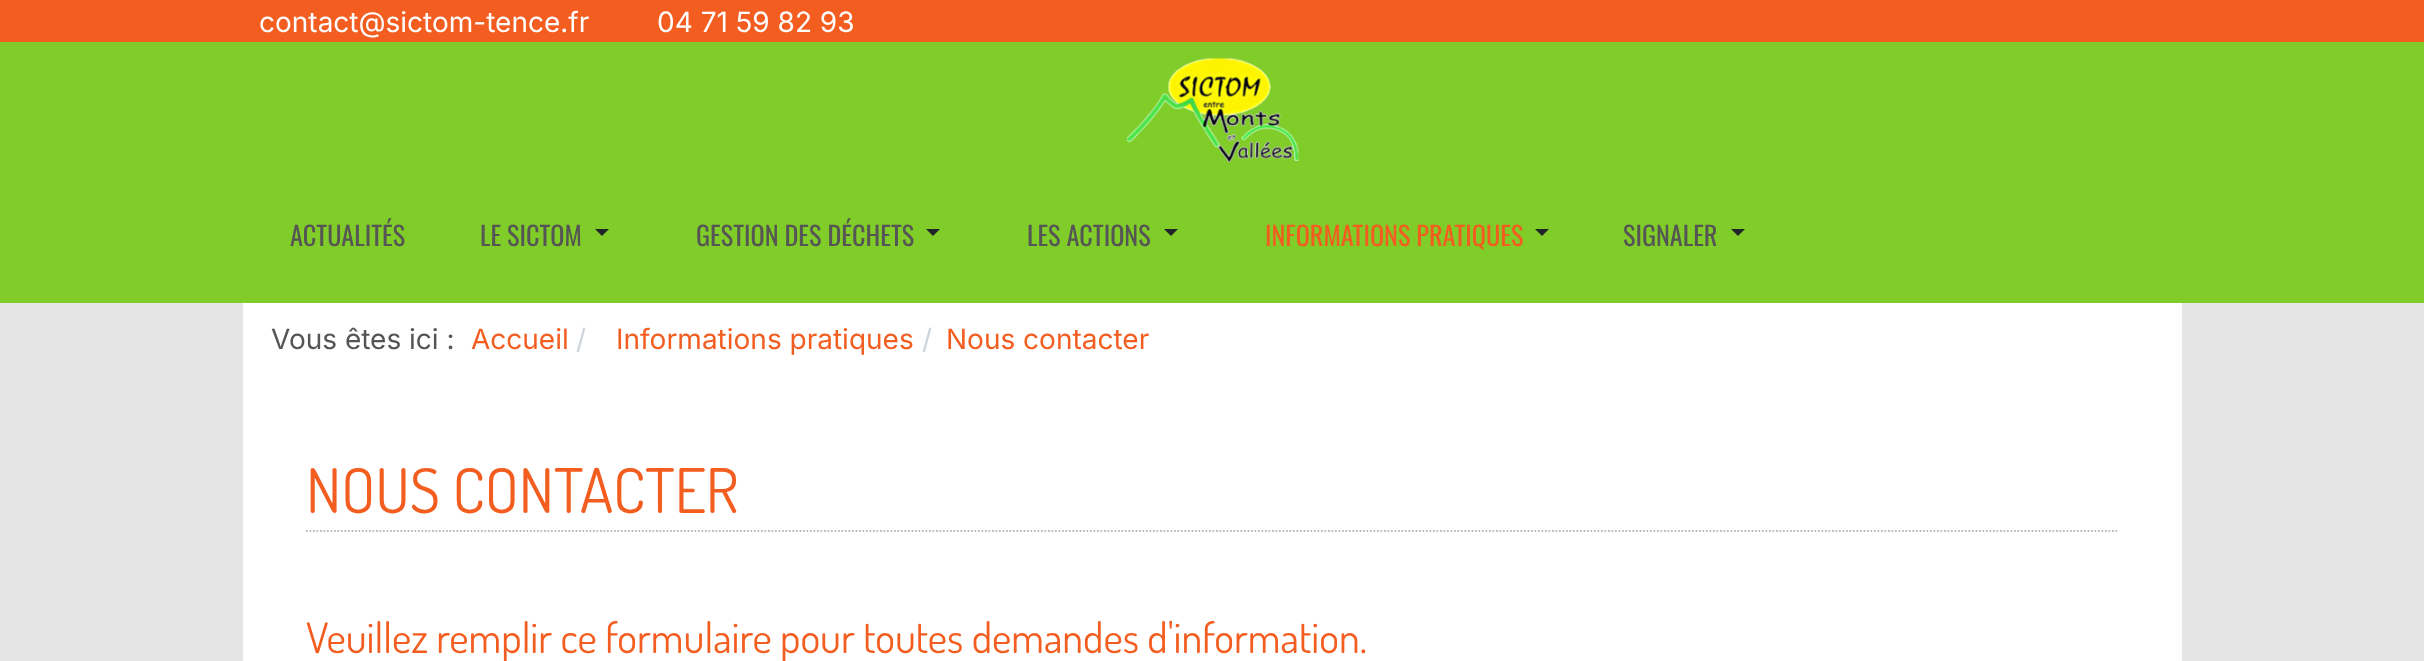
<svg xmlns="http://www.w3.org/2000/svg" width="2424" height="661">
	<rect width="100%" height="100%" fill="#E5E5E5" />
	<rect x="0" y="0" width="2424" height="42" fill="#F35D20" />
	<g font-family="Inter" font-size="28" fill="#FFFFFF">
		<text x="259" y="32">contact@sictom-tence.fr</text>
		<text x="657" y="32">04 71 59 82 93</text>
	</g>
	<rect x="0" y="42" width="2424" height="261" fill="#80CC28" />
	<image x="1126" y="57" width="174" height="105" href="assets/img1.png" />
	<g font-family="Oswald" font-size="26.25" fill="#555555">
		<text x="290" y="246">ACTUALITÉS</text>
		<text x="480" y="246">LE SICTOM</text>
	</g>
	<path d="M595 229H609L602 236Z" fill="#212529" />
	<text x="696" y="246" font-family="Oswald" font-size="26.25" fill="#555555">GESTION DES DÉCHETS</text>
	<path d="M926 229H940L933 236Z" fill="#212529" />
	<text x="1027" y="246" font-family="Oswald" font-size="26.25" fill="#555555">LES ACTIONS</text>
	<path d="M1164 229H1178L1171 236Z" fill="#212529" />
	<text x="1265" y="246" font-family="Oswald" font-size="26.25" fill="#F35D20">INFORMATIONS PRATIQUES</text>
	<path d="M1535 229H1549L1542 236Z" fill="#212529" />
	<text x="1623" y="246" font-family="Oswald" font-size="26.25" fill="#555555">SIGNALER</text>
	<path d="M1731 229H1745L1738 236Z" fill="#212529" />
	<rect x="243" y="303" width="1939" height="358" fill="#FFFFFF" />
	<text x="271" y="349" font-family="Inter" font-size="28" fill="#555555">Vous êtes ici :</text>
	<text x="471" y="349" font-family="Inter" font-size="28" fill="#F35D20">Accueil</text>
	<text x="576" y="349" font-family="Inter" font-size="28" fill="#CED4DA">/</text>
	<text x="616" y="349" font-family="Inter" font-size="28" fill="#F35D20">Informations pratiques</text>
	<text x="922" y="349" font-family="Inter" font-size="28" fill="#CED4DA">/</text>
	<text x="946" y="349" font-family="Inter" font-size="28" fill="#F35D20">Nous contacter</text>
	<path d="M306 531H2119" fill="none" stroke="#BBBBBB" stroke-width="1.8" stroke-dasharray="1.75 1.75" />
	<text x="306" y="513" font-family="Dosis" font-size="61.5" fill="#F35D20">NOUS CONTACTER</text>
	<text x="306" y="653" font-family="Dosis" font-size="42" fill="#F35D20">Veuillez remplir ce formulaire pour toutes demandes d'information.</text>
</svg>
